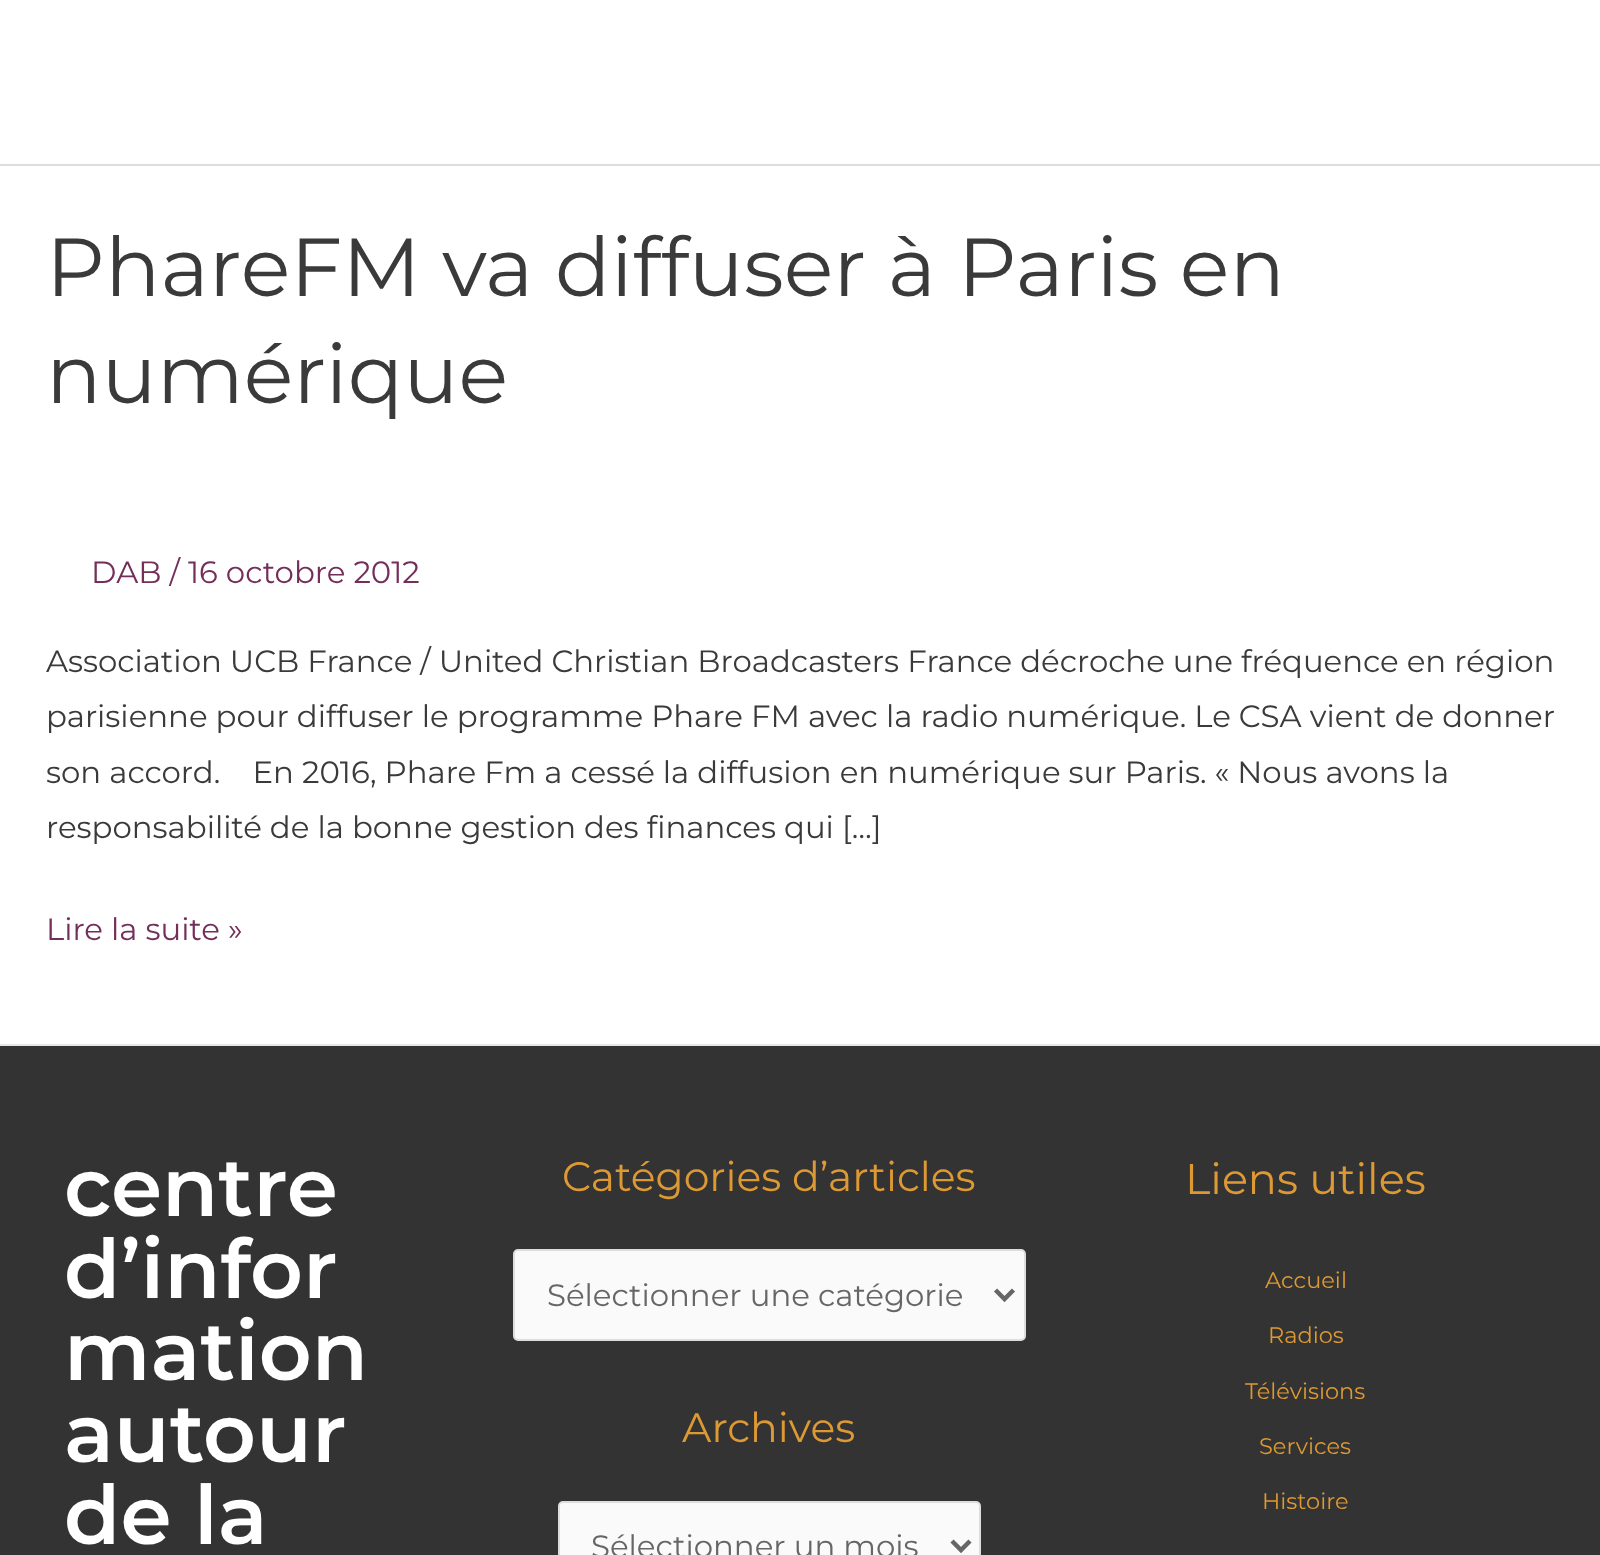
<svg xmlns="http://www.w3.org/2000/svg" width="1600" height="1555">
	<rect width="100%" height="100%" fill="#FFFFFF" />
	<rect x="0" y="164" width="1600" height="2" fill="#DDDDDD" />
	<g font-family="Montserrat" font-size="82.1" fill="#3A3A3A">
		<text x="46" y="296">PhareFM va diffuser à Paris en</text>
		<text x="46" y="403">numérique</text>
	</g>
	<text x="91" y="583" font-family="Montserrat" font-size="30.8" fill="#742E59">DAB / 16 octobre 2012</text>
	<g font-family="Montserrat" font-size="30.8" fill="#3A3A3A">
		<text x="46" y="672">Association UCB France / United Christian Broadcasters France décroche une fréquence en région</text>
		<text x="46" y="727">parisienne pour diffuser le programme Phare FM avec la radio numérique. Le CSA vient de donner</text>
		<text x="46" y="783" xml:space="preserve">son accord.    En 2016, Phare Fm a cessé la diffusion en numérique sur Paris. « Nous avons la</text>
		<text x="46" y="838">responsabilité de la bonne gestion des finances qui […]</text>
	</g>
	<text x="46" y="940" font-family="Montserrat" font-size="30.8" fill="#742E59">Lire la suite »</text>
	<rect x="0" y="1046" width="1600" height="509" fill="#333333" />
	<rect x="0" y="1044" width="1600" height="2" fill="#E6E6E6" />
	<g font-family="Montserrat" font-size="82.1" font-weight="600" fill="#FFFFFF">
		<text x="64" y="1216">centre</text>
		<text x="64" y="1298">d’infor</text>
		<text x="64" y="1380">mation</text>
		<text x="64" y="1462">autour</text>
		<text x="64" y="1544">de la</text>
	</g>
	<text x="562" y="1191" font-family="Montserrat" font-size="41" fill="#DD9933">Catégories d’articles</text>
	<rect x="514" y="1250" width="511" height="90" rx="4" fill="#FAFAFA" stroke="#DDDDDD" stroke-width="2" />
	<path d="M995.5 1290L1004.5 1299L1013.5 1290" fill="none" stroke="#666666" stroke-width="4.5" />
	<text x="547" y="1306" font-family="Montserrat" font-size="30.8" fill="#666666">Sélectionner une catégorie</text>
	<text x="682" y="1442" font-family="Montserrat" font-size="41" fill="#DD9933">Archives</text>
	<rect x="559" y="1502" width="421" height="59" rx="4" fill="#FAFAFA" stroke="#DDDDDD" stroke-width="2" />
	<path d="M952 1541L961 1550L970 1541" fill="none" stroke="#666666" stroke-width="4.5" />
	<text x="591" y="1557" font-family="Montserrat" font-size="30.8" fill="#666666">Sélectionner un mois</text>
	<text x="1185" y="1194" font-family="Montserrat" font-size="43" fill="#DD9933">Liens utiles</text>
	<g font-family="Montserrat" font-size="22.5" fill="#DD9933">
		<text x="1265" y="1288">Accueil</text>
		<text x="1268" y="1343">Radios</text>
		<text x="1245" y="1399">Télévisions</text>
		<text x="1259" y="1454">Services</text>
		<text x="1262" y="1509">Histoire</text>
	</g>
</svg>
